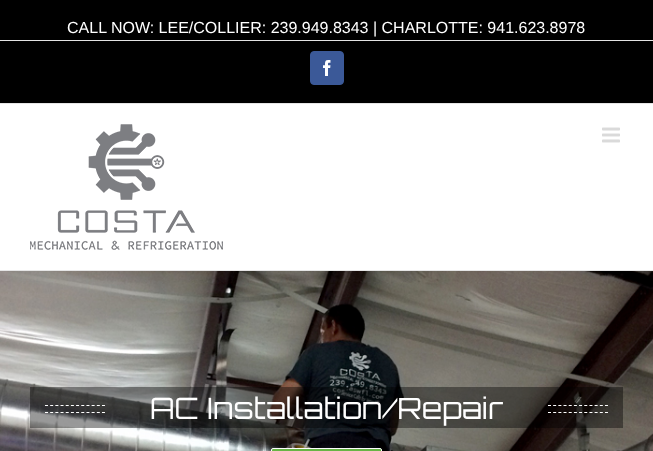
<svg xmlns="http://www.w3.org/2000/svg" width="653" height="451">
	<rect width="100%" height="100%" fill="#FFFFFF" />
	<rect x="0" y="0" width="653" height="103" fill="#000000" />
	<rect x="0" y="103" width="653" height="1" fill="#E5E5E5" />
	<rect x="0" y="40" width="653" height="1" fill="#E5E5E5" />
	<text x="67" y="33" font-family="Liberation Sans" font-size="16" fill="#FFFFFF">CALL NOW: LEE/COLLIER: 239.949.8343 | CHARLOTTE: 941.623.8978</text>
	<rect x="310.5" y="51.5" width="33" height="33" rx="3.5" fill="#3B5998" stroke="#3B5998" />
	<image x="323" y="60" width="8" height="16" href="assets/img1.png" />
	<rect x="0" y="270" width="653" height="1" fill="#E5E5E5" />
	<image x="30" y="124" width="193" height="126" href="assets/img2.png" />
	<image x="602" y="127" width="18" height="16" href="assets/img3.png" />
	<image x="0" y="271" width="653" height="180" href="assets/img4.png" />
	<rect x="30" y="387" width="593" height="41" fill="#000000" fill-opacity="0.4" />
	<path d="M45 405.5H105M45 412.5H105" fill="none" stroke="#FFFFFF" stroke-dasharray="3 2.18" />
	<text x="150" y="419" font-family="Orbitron" font-size="29.4" fill="#FFFFFF">AC Installation/Repair</text>
	<path d="M548 405.5H608M548 412.5H608" fill="none" stroke="#FFFFFF" stroke-dasharray="3 2.18" />
	<rect x="271.5" y="448.5" width="110" height="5" rx="1.5" fill="#67B545" stroke="#FFFFFF" />
</svg>
